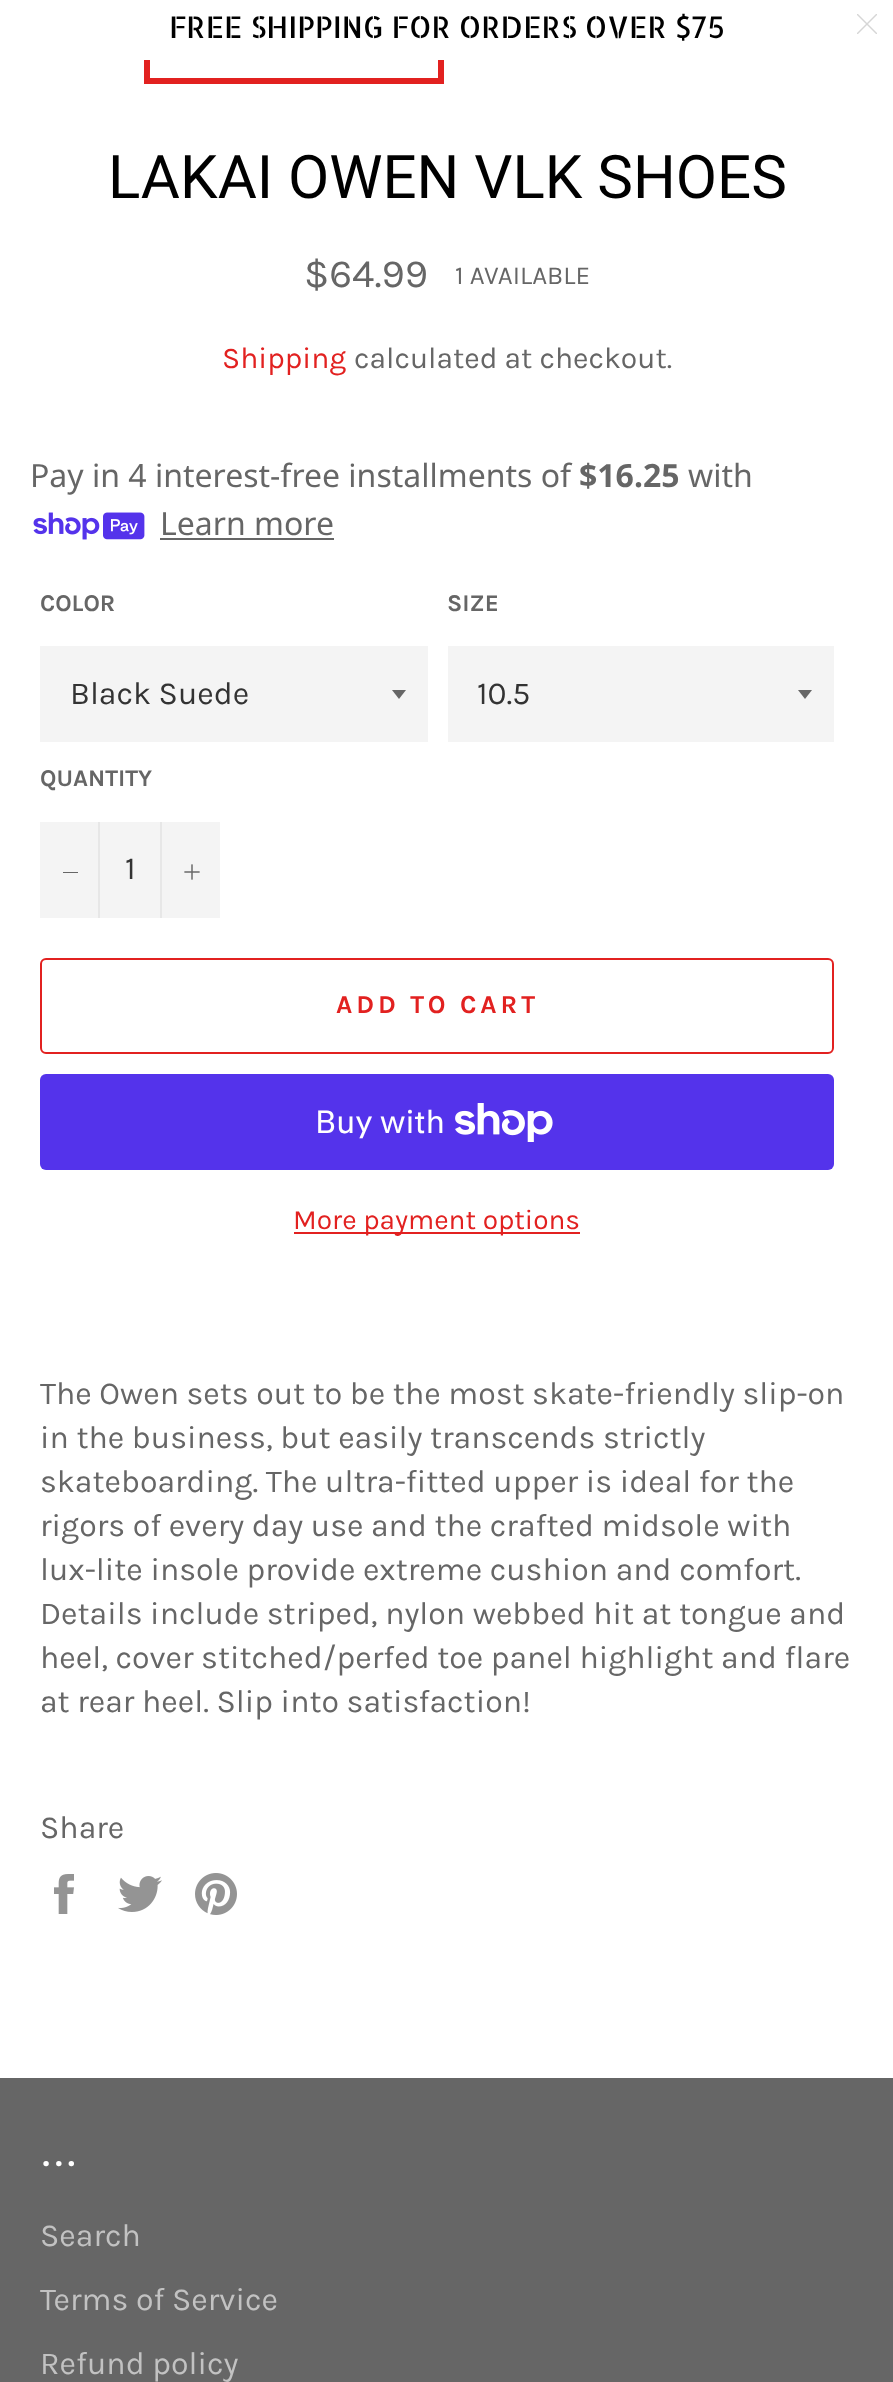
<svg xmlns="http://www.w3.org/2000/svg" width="893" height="2382">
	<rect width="100%" height="100%" fill="#FFFFFF" />
	<rect x="147" y="-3" width="294" height="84" fill="none" stroke="#E22120" stroke-width="6" />
	<rect x="144" y="0" width="300" height="60" fill="#FFFFFF" />
	<text x="169" y="38" font-family="Allerta Stencil" font-size="30" fill="#000000">FREE SHIPPING FOR ORDERS OVER $75</text>
	<path d="M857 14H858L877 33V34H876L857 15Z" fill="#D6D6D6" />
	<path d="M877 14V15L858 34H857V33L876 14Z" fill="#D6D6D6" />
	<text x="108" y="198" font-family="Roboto" font-size="60" fill="#000000">LAKAI OWEN VLK SHOES</text>
	<text x="304" y="287" font-family="Karla" font-size="40" fill="#666666">$64.99</text>
	<text x="455" y="284" font-family="Karla" font-size="26" fill="#666666">1 AVAILABLE</text>
	<text x="222" y="368" font-family="Karla" font-size="30" fill="#E22120">Shipping</text>
	<text x="354" y="368" font-family="Karla" font-size="30" fill="#666666">calculated at checkout.</text>
	<text x="30" y="487" font-family="Noto Sans" font-size="32" fill="#666666">Pay in 4 interest-free installments of</text>
	<text x="579" y="487" font-family="Noto Sans" font-size="32" font-weight="700" fill="#666666">$16.25</text>
	<text x="688" y="487" font-family="Noto Sans" font-size="32" fill="#666666">with</text>
	<image x="33" y="512" width="112" height="28" href="assets/img1.png" />
	<text x="160" y="535" font-family="Noto Sans" font-size="32" fill="#666666">Learn more</text>
	<rect x="160" y="538" width="174" height="2" fill="#666666" />
	<text x="40" y="611" font-family="Karla" font-size="24" font-weight="700" fill="#666666">COLOR</text>
	<rect x="40" y="646" width="388" height="96" fill="#F4F4F4" />
	<path d="M392 690L399 699L406 690Z" fill="#666666" />
	<text x="70" y="704" font-family="Karla" font-size="32" fill="#333333">Black Suede</text>
	<text x="447" y="611" font-family="Karla" font-size="24" font-weight="700" fill="#666666">SIZE</text>
	<rect x="448" y="646" width="386" height="96" fill="#F4F4F4" />
	<path d="M798 690L805 699L812 690Z" fill="#666666" />
	<text x="477" y="704" font-family="Karla" font-size="32" fill="#333333">10.5</text>
	<text x="40" y="786" font-family="Karla" font-size="24" font-weight="700" fill="#666666">QUANTITY</text>
	<rect x="40" y="822" width="180" height="96" fill="#F4F4F4" />
	<rect x="98" y="822" width="2" height="96" fill="#E7E7E7" />
	<rect x="63" y="872" width="15" height="1" fill="#666666" />
	<text x="125" y="879" font-family="Karla" font-size="32" fill="#333333">1</text>
	<rect x="160" y="822" width="2" height="96" fill="#E7E7E7" />
	<image x="184" y="864" width="16" height="16" href="assets/img2.png" />
	<rect x="41" y="959" width="792" height="94" rx="5" fill="none" stroke="#E22120" stroke-width="2" />
	<text x="336" y="1013" font-family="Karla" font-size="26" font-weight="700" letter-spacing="3.9" fill="#E22120">ADD TO CART</text>
	<rect x="40" y="1074" width="794" height="96" rx="6" fill="#5433EB" />
	<text x="315" y="1133" font-family="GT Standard" font-size="32" fill="#FFFFFF">Buy with</text>
	<image x="455" y="1103" width="98" height="39" href="assets/img3.png" />
	<rect x="294" y="1232" width="286" height="2" fill="#E22120" />
	<text x="293" y="1229" font-family="Karla" font-size="28" fill="#E22120">More payment options</text>
	<g font-family="Karla" font-size="32" fill="#666666">
		<text x="40" y="1404">The Owen sets out to be the most skate-friendly slip-on</text>
		<text x="40" y="1448">in the business, but easily transcends strictly</text>
		<text x="40" y="1492">skateboarding. The ultra-fitted upper is ideal for the</text>
		<text x="40" y="1536">rigors of every day use and the crafted midsole with</text>
		<text x="40" y="1580">lux-lite insole provide extreme cushion and comfort.</text>
		<text x="40" y="1624">Details include striped, nylon webbed hit at tongue and</text>
		<text x="40" y="1668">heel, cover stitched/perfed toe panel highlight and flare</text>
		<text x="40" y="1712">at rear heel. Slip into satisfaction!</text>
		<text x="40" y="1838">Share</text>
	</g>
	<image x="54" y="1874" width="20" height="40" href="assets/img4.png" />
	<image x="118" y="1876" width="44" height="36" href="assets/img5.png" />
	<image x="195" y="1873" width="42" height="42" href="assets/img6.png" />
	<rect x="0" y="2078" width="893" height="304" fill="#666666" />
	<text x="40" y="2166" font-family="Roboto" font-size="48" fill="#FFFFFF">...</text>
	<g font-family="Karla" font-size="32" fill="#C2C2C2">
		<text x="40" y="2246">Search</text>
		<text x="40" y="2310">Terms of Service</text>
		<text x="40" y="2374">Refund policy</text>
	</g>
</svg>
